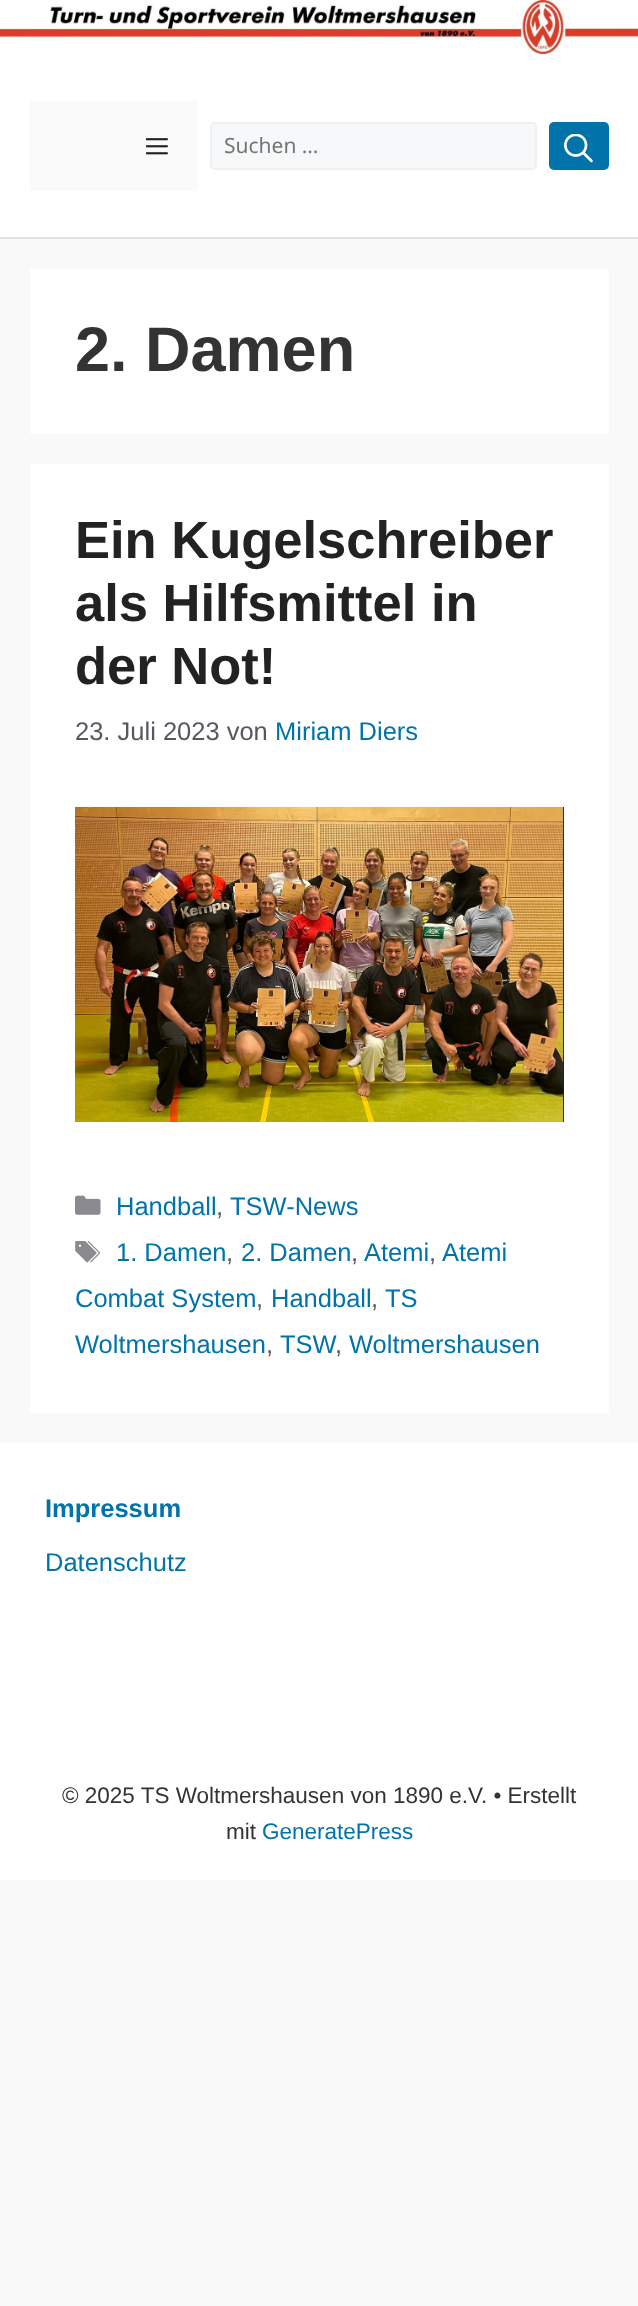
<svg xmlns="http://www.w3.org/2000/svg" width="638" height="2306">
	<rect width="100%" height="100%" fill="#F9F9F9" />
	<image x="0" y="0" width="638" height="54" href="assets/img1.png" />
	<rect x="0" y="54" width="638" height="183" fill="#FFFFFF" />
	<rect x="0" y="237" width="638" height="2" fill="#E1E1E1" />
	<rect x="30" y="101" width="168" height="90" fill="#FAFAFA" />
	<image x="146" y="138" width="22" height="17" href="assets/img2.png" />
	<rect x="211" y="123" width="325" height="46" rx="4" fill="#F7F8F9" stroke="#F0F0F0" stroke-width="2" />
	<text x="224" y="153" font-family="Noto Sans" font-size="21" fill="#757575">Suchen …</text>
	<rect x="549" y="122" width="60" height="48" rx="5" fill="#0073AA" />
	<image x="564" y="134" width="29" height="29" href="assets/img3.png" />
	<rect x="30" y="269" width="579" height="165" fill="#FFFFFF" />
	<text x="75" y="371" font-family="Liberation Sans" font-size="63" font-weight="700" fill="#333333">2. Damen</text>
	<rect x="30" y="464" width="579" height="949" fill="#FFFFFF" />
	<g font-family="Liberation Sans" font-size="52.5" font-weight="700" fill="#222222">
		<text x="75" y="558">Ein Kugelschreiber</text>
		<text x="75" y="621">als Hilfsmittel in</text>
		<text x="75" y="684">der Not!</text>
	</g>
	<text x="75" y="740" font-family="Liberation Sans" font-size="25.5" fill="#575760">23. Juli 2023 von</text>
	<text x="275" y="740" font-family="Liberation Sans" font-size="25.5" fill="#0073AA">Miriam Diers</text>
	<image x="75" y="807" width="489" height="315" href="assets/img4.png" />
	<image x="75" y="1195" width="26" height="20" href="assets/img5.png" />
	<text x="116" y="1215" font-family="Liberation Sans" font-size="25.5" fill="#0073AA">Handball</text>
	<text x="216" y="1215" font-family="Liberation Sans" font-size="25.5" fill="#575760">,</text>
	<text x="230" y="1215" font-family="Liberation Sans" font-size="25.5" fill="#0073AA">TSW-News</text>
	<image x="75" y="1241" width="26" height="22" href="assets/img6.png" />
	<text x="116" y="1261" font-family="Liberation Sans" font-size="25.5" fill="#0073AA">1. Damen</text>
	<text x="226" y="1261" font-family="Liberation Sans" font-size="25.5" fill="#575760">,</text>
	<text x="241" y="1261" font-family="Liberation Sans" font-size="25.5" fill="#0073AA">2. Damen</text>
	<text x="351" y="1261" font-family="Liberation Sans" font-size="25.5" fill="#575760">,</text>
	<text x="364" y="1261" font-family="Liberation Sans" font-size="25.5" fill="#0073AA">Atemi</text>
	<text x="429" y="1261" font-family="Liberation Sans" font-size="25.5" fill="#575760">,</text>
	<g font-family="Liberation Sans" font-size="25.5" fill="#0073AA">
		<text x="442" y="1261">Atemi</text>
		<text x="75" y="1307">Combat System</text>
	</g>
	<text x="256" y="1307" font-family="Liberation Sans" font-size="25.5" fill="#575760">,</text>
	<text x="271" y="1307" font-family="Liberation Sans" font-size="25.5" fill="#0073AA">Handball</text>
	<text x="371" y="1307" font-family="Liberation Sans" font-size="25.5" fill="#575760">,</text>
	<g font-family="Liberation Sans" font-size="25.5" fill="#0073AA">
		<text x="385" y="1307">TS</text>
		<text x="75" y="1353">Woltmershausen</text>
	</g>
	<text x="266" y="1353" font-family="Liberation Sans" font-size="25.5" fill="#575760">,</text>
	<text x="280" y="1353" font-family="Liberation Sans" font-size="25.5" fill="#0073AA">TSW</text>
	<text x="335" y="1353" font-family="Liberation Sans" font-size="25.5" fill="#575760">,</text>
	<text x="349" y="1353" font-family="Liberation Sans" font-size="25.5" fill="#0073AA">Woltmershausen</text>
	<rect x="0" y="1443" width="638" height="437" fill="#FFFFFF" />
	<text x="45" y="1517" font-family="Liberation Sans" font-size="25.5" font-weight="700" fill="#0073AA">Impressum</text>
	<text x="45" y="1571" font-family="Liberation Sans" font-size="25.5" fill="#0073AA">Datenschutz</text>
	<g font-family="Liberation Sans" font-size="22.5" fill="#333333">
		<text x="62" y="1803">© 2025 TS Woltmershausen von 1890 e.V. • Erstellt</text>
		<text x="226" y="1839">mit</text>
	</g>
	<text x="262" y="1839" font-family="Liberation Sans" font-size="22.5" fill="#0073AA">GeneratePress</text>
</svg>
